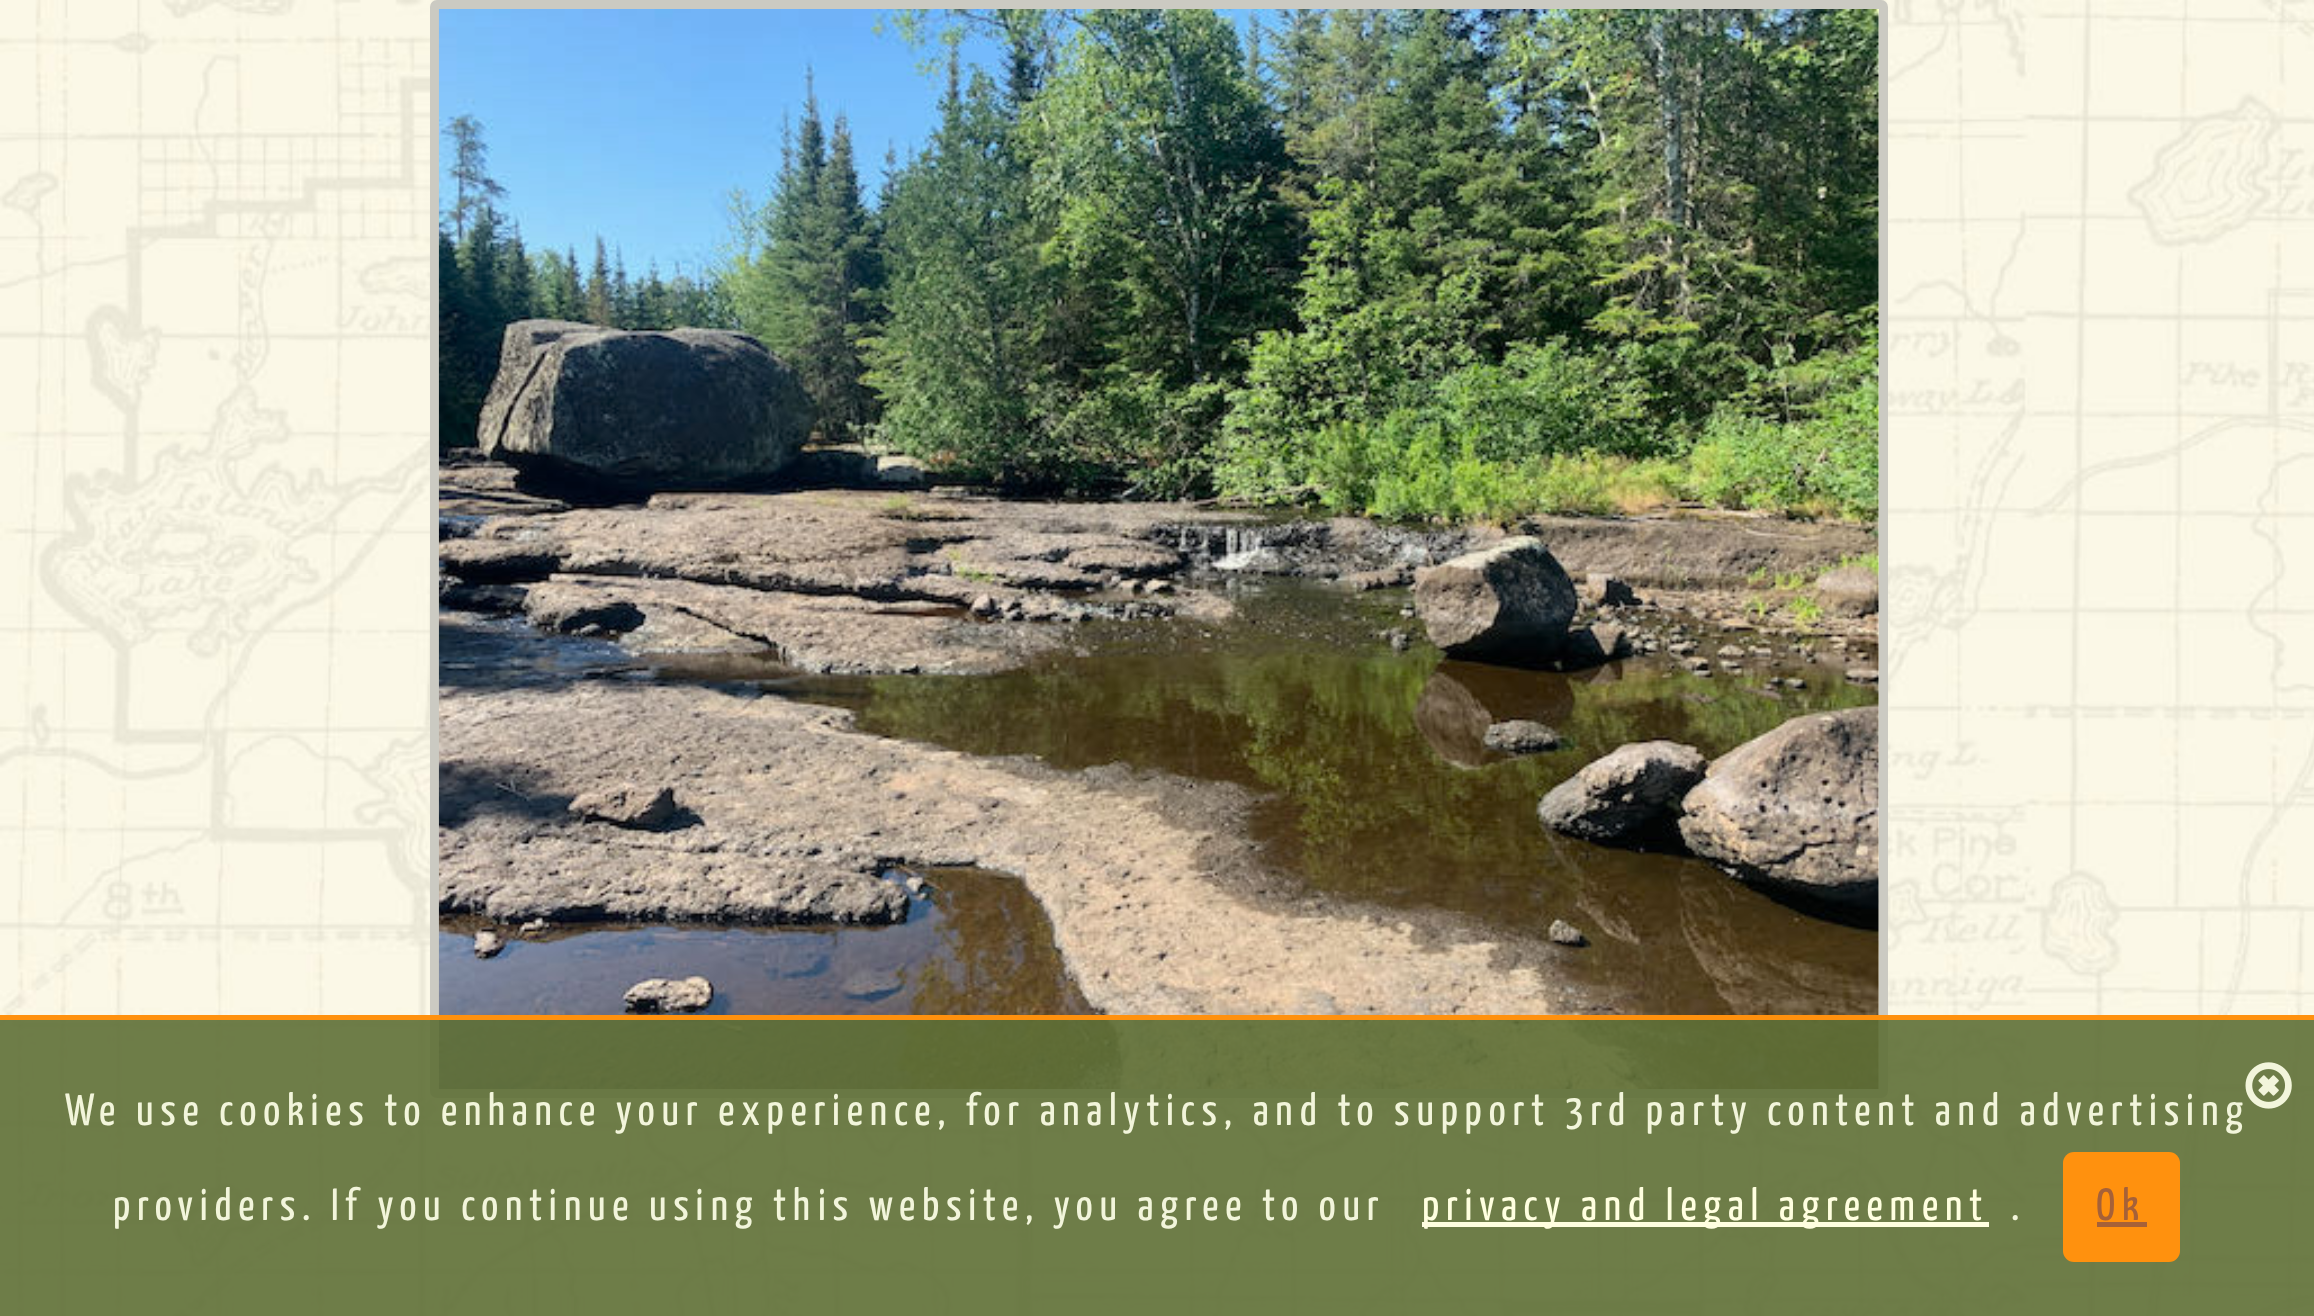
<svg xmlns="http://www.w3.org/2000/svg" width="2314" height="1316">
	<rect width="100%" height="100%" fill="#FFFFFF" />
	<image x="0" y="0" width="2314" height="1316" href="assets/img1.png" />
	<rect x="434.5" y="4.5" width="1449" height="1089" rx="2.5" fill="none" stroke="#CBCAC2" stroke-width="9" />
	<image x="438" y="9" width="1441" height="1080" href="assets/img2.png" />
	<rect x="0" y="1020" width="2314" height="296" fill="#5E6F36" fill-opacity="0.9" />
	<rect x="0" y="1015" width="2314" height="5" fill="#FF910E" />
	<image x="2245" y="1062" width="47" height="47" href="assets/img3.png" />
	<g font-family="Yanone Kaffeesatz" font-size="45" letter-spacing="6.75" fill="#F2F5DB">
		<text x="65" y="1125">We use cookies to enhance your experience, for analytics, and to support 3rd party content and advertising</text>
		<text x="113" y="1220">providers. If you continue using this website, you agree to our</text>
	</g>
	<rect x="1422" y="1222" width="567" height="5" fill="#FFFFE0" />
	<text x="1422" y="1220" font-family="Yanone Kaffeesatz" font-size="45" letter-spacing="6.75" fill="#FFFFE0">privacy and legal agreement</text>
	<text x="2011" y="1220" font-family="Yanone Kaffeesatz" font-size="45" letter-spacing="6.75" fill="#F2F5DB">.</text>
	<rect x="2063" y="1152" width="117" height="110" rx="11" fill="#FF910E" />
	<text x="2096" y="1220" font-family="Yanone Kaffeesatz" font-size="45" letter-spacing="6.75" fill="#A66138">Ok</text>
	<rect x="2097" y="1222" width="50" height="5" fill="#A66138" />
</svg>
